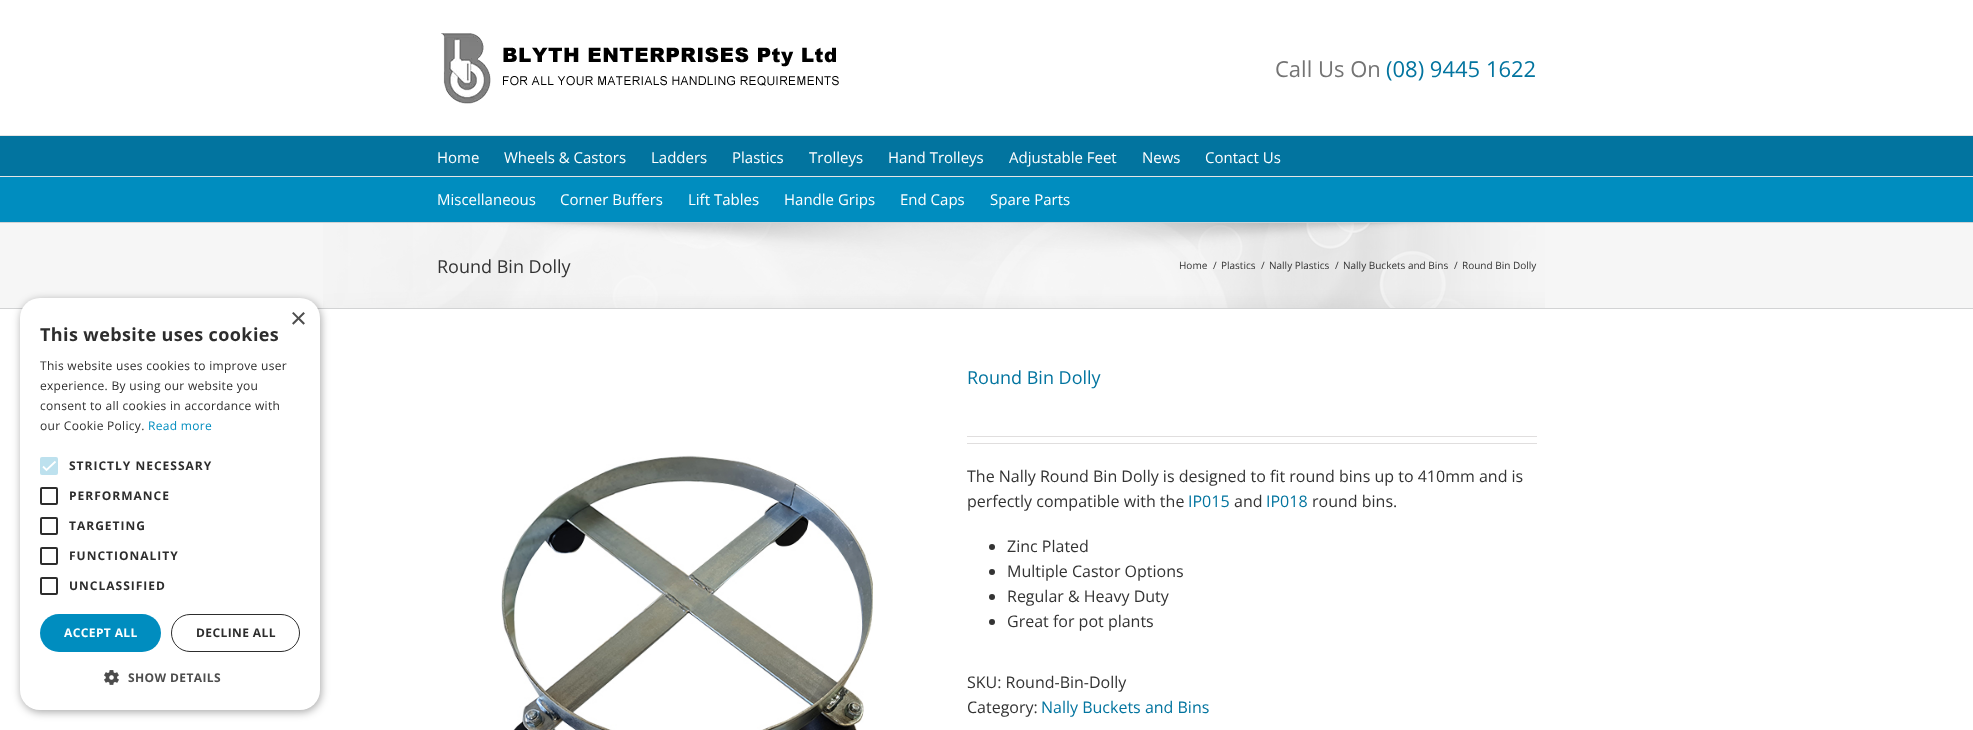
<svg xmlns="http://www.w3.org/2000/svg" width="1973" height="730">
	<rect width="100%" height="100%" fill="#FFFFFF" />
	<rect x="0" y="223" width="1973" height="85" fill="#F6F6F6" />
	<image x="323" y="223" width="1222" height="85" href="assets/img3.png" />
	<rect x="0" y="308" width="1973" height="1" fill="#D2D3D4" />
	<rect x="21" y="300" width="300" height="412" rx="20" fill="#000000" fill-opacity="0.35" filter="blur(4px)" />
	<rect x="20" y="298" width="300" height="412" rx="20" fill="#FFFFFF" />
	<text x="290" y="328" font-family="Liberation Sans" font-size="29" fill="#4D4D4D">×</text>
	<text x="40" y="341" font-family="Open Sans" font-size="18" font-weight="700" letter-spacing="0.4" fill="#2D2D2D">This website uses cookies</text>
	<g font-family="Open Sans" font-size="12" letter-spacing="0.3" fill="#2D2D2D">
		<text x="40" y="370">This website uses cookies to improve user</text>
		<text x="40" y="390">experience. By using our website you</text>
		<text x="40" y="410">consent to all cookies in accordance with</text>
		<text x="40" y="430">our Cookie Policy.</text>
	</g>
	<text x="148" y="430" font-family="Open Sans" font-size="12" letter-spacing="0.3" fill="#008DBF">Read more</text>
	<rect x="40" y="457" width="18" height="18" rx="2" fill="#BDE1EE" />
	<path d="M43 466.5L46.5 470L55.5 461.5" fill="none" stroke="#FFFFFF" stroke-width="1.8" />
	<text x="69" y="470" font-family="Open Sans" font-size="12" font-weight="700" letter-spacing="1" fill="#2D2D2D">STRICTLY NECESSARY</text>
	<rect x="41" y="488" width="16" height="16" rx="1" fill="none" stroke="#2D2D2D" stroke-width="2" />
	<text x="69" y="500" font-family="Open Sans" font-size="12" font-weight="700" letter-spacing="1" fill="#2D2D2D">PERFORMANCE</text>
	<rect x="41" y="518" width="16" height="16" rx="1" fill="none" stroke="#2D2D2D" stroke-width="2" />
	<text x="69" y="530" font-family="Open Sans" font-size="12" font-weight="700" letter-spacing="1" fill="#2D2D2D">TARGETING</text>
	<rect x="41" y="548" width="16" height="16" rx="1" fill="none" stroke="#2D2D2D" stroke-width="2" />
	<text x="69" y="560" font-family="Open Sans" font-size="12" font-weight="700" letter-spacing="1" fill="#2D2D2D">FUNCTIONALITY</text>
	<rect x="41" y="578" width="16" height="16" rx="1" fill="none" stroke="#2D2D2D" stroke-width="2" />
	<text x="69" y="590" font-family="Open Sans" font-size="12" font-weight="700" letter-spacing="1" fill="#2D2D2D">UNCLASSIFIED</text>
	<rect x="40" y="614" width="121" height="38" rx="19" fill="#008DBF" />
	<text x="64" y="637" font-family="Open Sans" font-size="12" font-weight="700" letter-spacing="0.4" fill="#FFFFFF">ACCEPT ALL</text>
	<rect x="171.5" y="614.5" width="128" height="37" rx="18.5" fill="none" stroke="#2D2D2D" />
	<text x="196" y="637" font-family="Open Sans" font-size="12" font-weight="700" letter-spacing="0.4" fill="#2D2D2D">DECLINE ALL</text>
	<image x="104" y="670" width="15" height="15" href="assets/img1.png" />
	<text x="128" y="682" font-family="Open Sans" font-size="12" font-weight="700" letter-spacing="0.4" fill="#4D4D4D">SHOW DETAILS</text>
	<rect x="0" y="135" width="1973" height="1" fill="#E5E5E5" />
	<image x="441" y="33" width="398" height="71" href="assets/img2.png" />
	<text x="1275" y="77" font-family="Open Sans" font-size="22" fill="#747474">Call Us On</text>
	<text x="1386" y="77" font-family="Open Sans" font-size="22" fill="#02749F">(08) 9445 1622</text>
	<rect x="0" y="136" width="1973" height="40" fill="#02749F" />
	<rect x="0" y="176" width="1973" height="1" fill="#E5E5E5" />
	<g font-family="Open Sans" font-size="15" fill="#FFFFFF">
		<text x="437" y="163">Home</text>
		<text x="504" y="163">Wheels &amp; Castors</text>
		<text x="651" y="163">Ladders</text>
		<text x="732" y="163">Plastics</text>
		<text x="809" y="163">Trolleys</text>
		<text x="888" y="163">Hand Trolleys</text>
		<text x="1009" y="163">Adjustable Feet</text>
		<text x="1142" y="163">News</text>
		<text x="1205" y="163">Contact Us</text>
	</g>
	<rect x="0" y="177" width="1973" height="45" fill="#008DBF" />
	<g font-family="Open Sans" font-size="15" fill="#FFFFFF">
		<text x="437" y="205">Miscellaneous</text>
		<text x="560" y="205">Corner Buffers</text>
		<text x="688" y="205">Lift Tables</text>
		<text x="784" y="205">Handle Grips</text>
		<text x="900" y="205">End Caps</text>
		<text x="990" y="205">Spare Parts</text>
	</g>
	<rect x="0" y="222" width="1973" height="1" fill="#D2D3D4" />
	<text x="437" y="273" font-family="Open Sans" font-size="18" fill="#333333">Round Bin Dolly</text>
	<g font-family="Open Sans" font-size="10" fill="#333333">
		<text x="1179" y="269">Home</text>
		<text x="1213" y="269">/</text>
		<text x="1221" y="269">Plastics</text>
		<text x="1261" y="269">/</text>
		<text x="1269" y="269">Nally Plastics</text>
		<text x="1335" y="269">/</text>
		<text x="1343" y="269">Nally Buckets and Bins</text>
		<text x="1454" y="269">/</text>
		<text x="1462" y="269">Round Bin Dolly</text>
	</g>
	<image x="501" y="455" width="372" height="275" href="assets/img4.png" />
	<text x="967" y="384" font-family="Open Sans" font-size="18" fill="#02749F">Round Bin Dolly</text>
	<rect x="967" y="436" width="570" height="1" fill="#E0DEDE" />
	<rect x="967" y="443" width="570" height="1" fill="#E0DEDE" />
	<g font-family="Open Sans" font-size="16" fill="#333333">
		<text x="967" y="482">The Nally Round Bin Dolly is designed to fit round bins up to 410mm and is</text>
		<text x="967" y="507">perfectly compatible with the</text>
	</g>
	<text x="1188" y="507" font-family="Open Sans" font-size="16" fill="#02749F">IP015</text>
	<text x="1234" y="507" font-family="Open Sans" font-size="16" fill="#333333">and</text>
	<text x="1266" y="507" font-family="Open Sans" font-size="16" fill="#02749F">IP018</text>
	<text x="1312" y="507" font-family="Open Sans" font-size="16" fill="#333333">round bins.</text>
	<circle cx="992" cy="547" r="3" fill="#333333" />
	<text x="1007" y="552" font-family="Open Sans" font-size="16" fill="#333333">Zinc Plated</text>
	<circle cx="992" cy="572" r="3" fill="#333333" />
	<text x="1007" y="577" font-family="Open Sans" font-size="16" fill="#333333">Multiple Castor Options</text>
	<circle cx="992" cy="597" r="3" fill="#333333" />
	<text x="1007" y="602" font-family="Open Sans" font-size="16" fill="#333333">Regular &amp; Heavy Duty</text>
	<circle cx="992" cy="622" r="3" fill="#333333" />
	<g font-family="Open Sans" font-size="16" fill="#333333">
		<text x="1007" y="627">Great for pot plants</text>
		<text x="967" y="688">SKU: Round-Bin-Dolly</text>
		<text x="967" y="713">Category:</text>
	</g>
	<text x="1041" y="713" font-family="Open Sans" font-size="16" fill="#02749F">Nally Buckets and Bins</text>
</svg>
